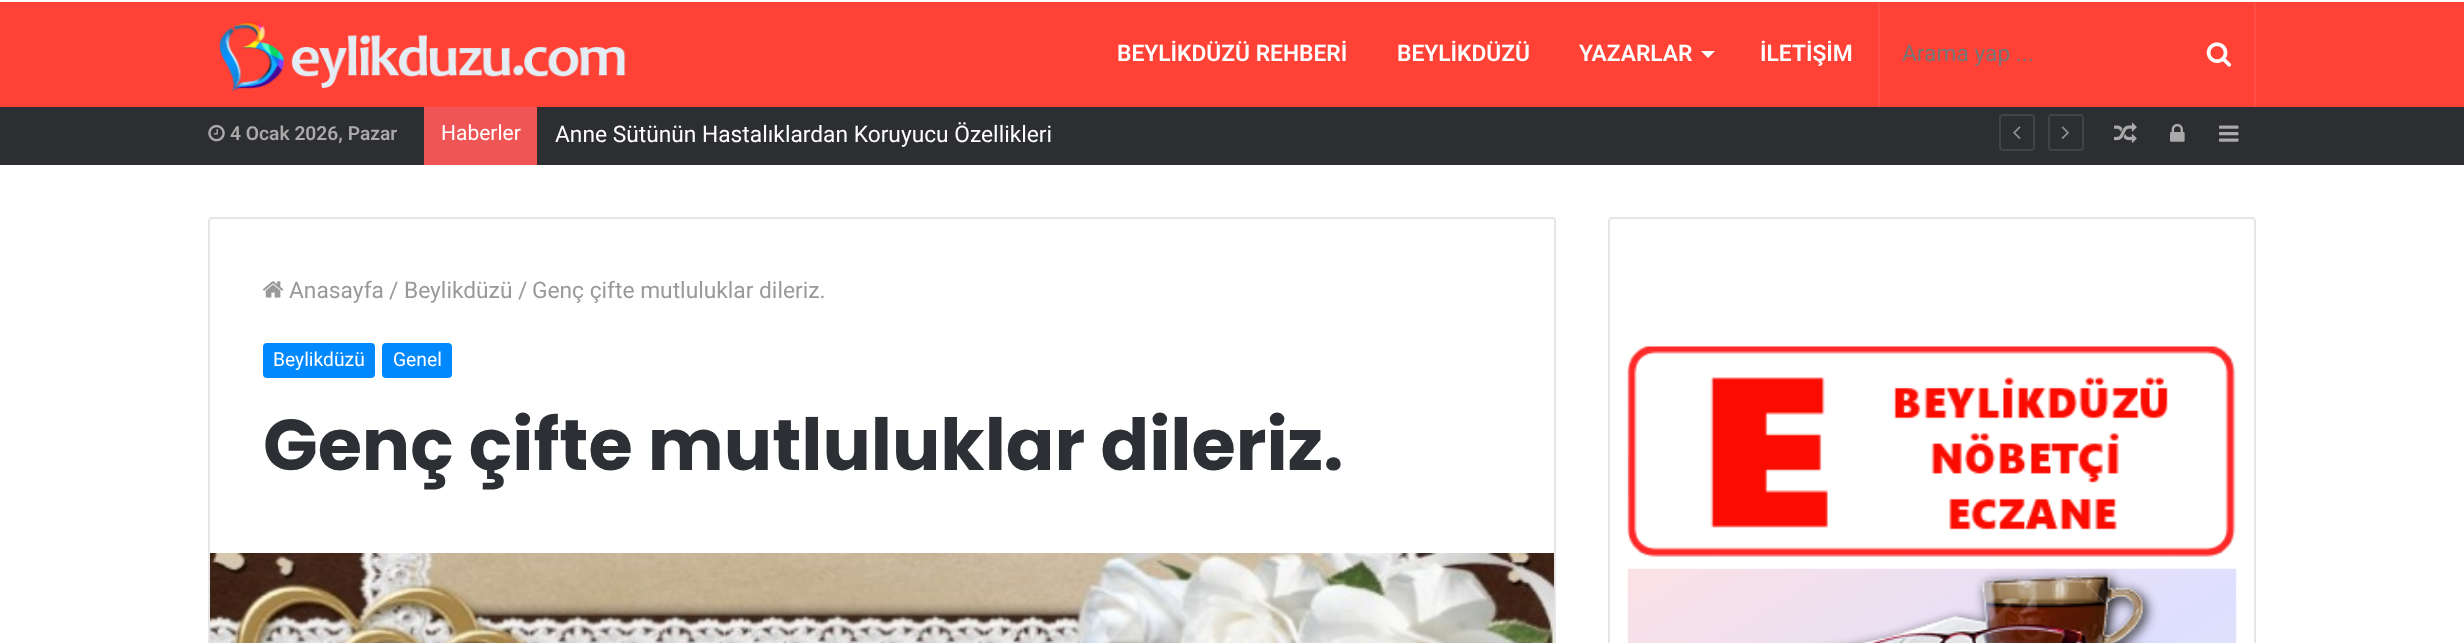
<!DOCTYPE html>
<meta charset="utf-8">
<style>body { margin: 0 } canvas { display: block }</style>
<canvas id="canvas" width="2464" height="643"></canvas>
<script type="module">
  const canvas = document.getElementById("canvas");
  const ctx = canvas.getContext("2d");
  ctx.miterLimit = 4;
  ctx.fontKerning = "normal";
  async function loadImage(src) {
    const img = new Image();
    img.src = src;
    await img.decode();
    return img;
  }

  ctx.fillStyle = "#ffffff";
  ctx.fillRect(0, 0, 2464, 643);
  ctx.fillStyle = "#ff4136";
  ctx.fillRect(0, 2, 2464, 105);
  ctx.drawImage(await loadImage("img1.png"), 219, 21, 407, 72);
  ctx.font = "600 22.75px Roboto";
  ctx.fillStyle = "#ffffff";
  ctx.fillText("BEYLİKDÜZÜ REHBERİ", 1117, 61);
  ctx.fillText("BEYLİKDÜZÜ", 1397, 61);
  ctx.fillText("YAZARLAR", 1579, 61);
  ctx.beginPath();
  ctx.moveTo(1701, 51);
  ctx.lineTo(1715, 51);
  ctx.lineTo(1708, 58);
  ctx.closePath();
  ctx.fill();
  ctx.fillText("İLETİŞİM", 1760, 61);
  ctx.fillStyle = "#ff4e44";
  ctx.fillRect(2254, 2, 2, 105);
  ctx.fillRect(1878, 2, 2, 105);
  ctx.font = "22.75px Roboto";
  ctx.fillStyle = "#757575";
  ctx.fillText("Arama yap ...", 1902, 61);
  ctx.drawImage(await loadImage("img2.png"), 2206, 42, 26, 25);
  ctx.fillStyle = "#2c2e32";
  ctx.fillRect(0, 107, 2464, 58);
  ctx.drawImage(await loadImage("img3.png"), 208, 124, 17, 18);
  ctx.font = "600 19.25px Roboto";
  ctx.fillStyle = "#aaaaaa";
  ctx.fillText("4 Ocak 2026, Pazar", 230, 140);
  ctx.fillStyle = "#f05555";
  ctx.fillRect(424, 107, 113, 58);
  ctx.font = "21px Roboto";
  ctx.fillStyle = "#ffffff";
  ctx.fillText("Haberler", 441, 140);
  ctx.font = "22.75px Roboto";
  ctx.fillText("Anne Sütünün Hastalıklardan Koruyucu Özellikleri", 555, 142);
  ctx.beginPath();
  ctx.roundRect(2000, 115, 34, 35, 3);
  ctx.strokeStyle = "#414347";
  ctx.lineWidth = 2;
  ctx.stroke();
  ctx.drawImage(await loadImage("img4.png"), 2013, 126, 8, 13);
  ctx.beginPath();
  ctx.roundRect(2049, 115, 34, 35, 3);
  ctx.stroke();
  ctx.drawImage(await loadImage("img5.png"), 2061, 126, 8, 13);
  ctx.drawImage(await loadImage("img6.png"), 2114, 122, 23, 21);
  ctx.drawImage(await loadImage("img7.png"), 2170, 123, 15, 19);
  ctx.drawImage(await loadImage("img8.png"), 2219, 125, 20, 17);
  ctx.beginPath();
  ctx.roundRect(209, 218, 1346, 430, 3);
  ctx.strokeStyle = "#e6e6e6";
  ctx.stroke();
  ctx.drawImage(await loadImage("img9.png"), 262, 281, 22, 17);
  ctx.fillStyle = "#999999";
  ctx.fillText("Anasayfa", 289, 298);
  ctx.fillText("/", 389, 298);
  ctx.fillText("Beylikdüzü", 404, 298);
  ctx.fillText("/", 518, 298);
  ctx.fillText("Genç çifte mutluluklar dileriz.", 532, 298);
  ctx.fillStyle = "#0088ff";
  ctx.beginPath();
  ctx.roundRect(263, 343, 112, 35, 4);
  ctx.fill();
  ctx.font = "19.25px Roboto";
  ctx.fillStyle = "#ffffff";
  ctx.fillText("Beylikdüzü", 273, 366);
  ctx.fillStyle = "#0088ff";
  ctx.beginPath();
  ctx.roundRect(382, 343, 70, 35, 4);
  ctx.fill();
  ctx.fillStyle = "#ffffff";
  ctx.fillText("Genel", 393, 366);
  ctx.font = "bold 71.75px Poppins";
  ctx.fillStyle = "#2c2f34";
  ctx.fillText("Genç çifte mutluluklar dileriz.", 263, 470);
  ctx.drawImage(await loadImage("img10.png"), 210, 553, 1344, 90);
  ctx.beginPath();
  ctx.roundRect(1609, 218, 646, 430, 3);
  ctx.stroke();
  ctx.drawImage(await loadImage("img11.png"), 1627, 346, 609, 211);
  ctx.drawImage(await loadImage("img12.png"), 1627, 568, 610, 75);
</script>
